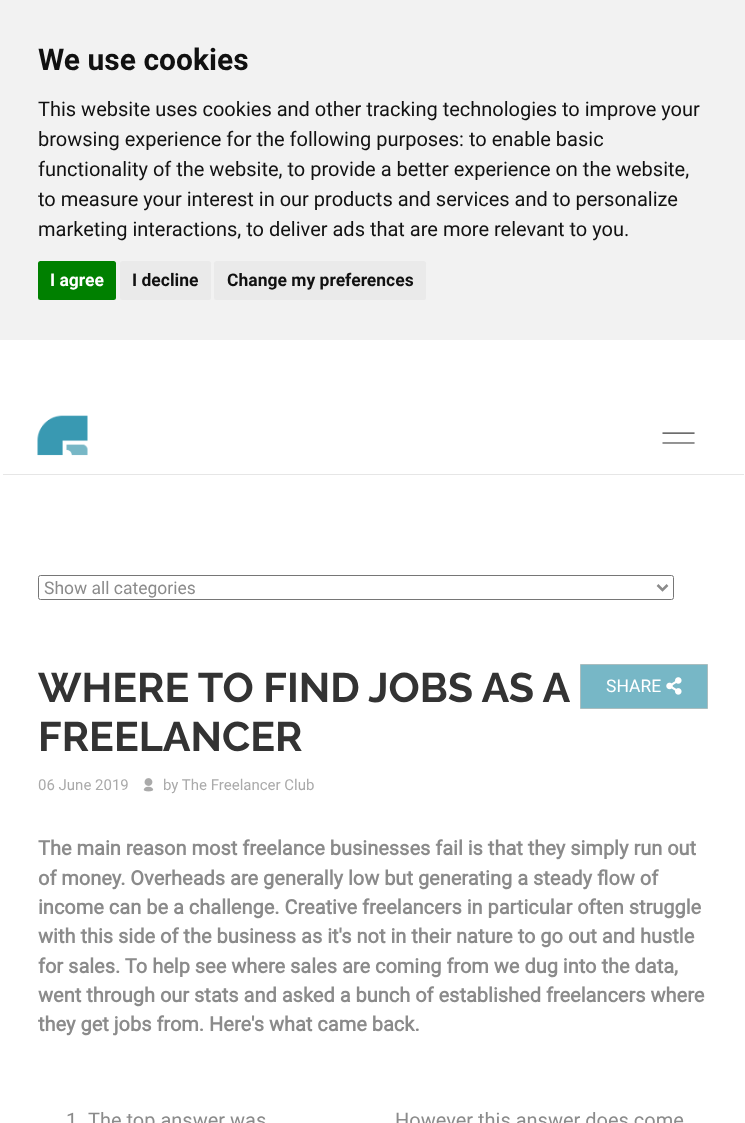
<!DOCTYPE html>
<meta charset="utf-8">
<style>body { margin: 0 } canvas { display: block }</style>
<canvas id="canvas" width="745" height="1123"></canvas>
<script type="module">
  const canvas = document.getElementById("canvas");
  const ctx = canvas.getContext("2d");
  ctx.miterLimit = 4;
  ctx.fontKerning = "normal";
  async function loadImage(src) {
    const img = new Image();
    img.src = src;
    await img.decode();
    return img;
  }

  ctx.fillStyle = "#ffffff";
  ctx.fillRect(0, 0, 745, 1123);
  ctx.fillStyle = "#f2f2f2";
  ctx.fillRect(0, 0, 745, 340);
  ctx.font = "bold 30px 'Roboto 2'";
  ctx.fillStyle = "#111111";
  ctx.fillText("We use cookies", 38, 70);
  ctx.font = "20px 'Roboto 2'";
  ctx.fillText("This website uses cookies and other tracking technologies to improve your", 38, 116);
  ctx.fillText("browsing experience for the following purposes: to enable basic", 38, 146);
  ctx.fillText("functionality of the website, to provide a better experience on the website,", 38, 176);
  ctx.fillText("to measure your interest in our products and services and to personalize", 38, 206);
  ctx.fillText("marketing interactions, to deliver ads that are more relevant to you.", 38, 236);
  ctx.fillStyle = "#008000";
  ctx.beginPath();
  ctx.roundRect(38, 261, 78, 39, 2.5);
  ctx.fill();
  ctx.font = "bold 17.5px 'Roboto 2'";
  ctx.fillStyle = "#ffffff";
  ctx.fillText("I agree", 50, 286);
  ctx.fillStyle = "#eaeaea";
  ctx.beginPath();
  ctx.roundRect(120, 261, 91, 39, 2.5);
  ctx.fill();
  ctx.fillStyle = "#111111";
  ctx.fillText("I decline", 132, 286);
  ctx.fillStyle = "#eaeaea";
  ctx.beginPath();
  ctx.roundRect(214, 261, 212, 39, 2.5);
  ctx.fill();
  ctx.fillStyle = "#111111";
  ctx.fillText("Change my preferences", 227, 286);
  ctx.fillStyle = "#e6e6e6";
  ctx.fillRect(3, 474, 741, 1);
  ctx.drawImage(await loadImage("img1.png"), 37, 415, 51, 41);
  ctx.drawImage(await loadImage("img2.png"), 662, 432, 33, 12);
  ctx.beginPath();
  ctx.roundRect(38.5, 575.5, 635, 24, 2);
  ctx.strokeStyle = "#767676";
  ctx.stroke();
  ctx.beginPath();
  ctx.moveTo(657.5, 585);
  ctx.lineTo(662.5, 590);
  ctx.lineTo(667.5, 585);
  ctx.strokeStyle = "#8b8b8b";
  ctx.lineWidth = 2.5;
  ctx.stroke();
  ctx.font = "17.5px Roboto";
  ctx.fillStyle = "#8b8b8b";
  ctx.fillText("Show all categories", 44, 594);
  ctx.wordSpacing = "-0.25px";
  ctx.font = "bold 41.25px Raleway";
  ctx.fillStyle = "#333333";
  ctx.fillText("WHERE TO FIND JOBS AS A", 38, 702);
  ctx.wordSpacing = "0px";
  ctx.fillText("FREELANCER", 38, 751);
  ctx.fillStyle = "#77b7c6";
  ctx.beginPath();
  ctx.rect(580.5, 664.5, 127, 44);
  ctx.fill();
  ctx.strokeStyle = "#aabdbf";
  ctx.lineWidth = 1;
  ctx.stroke();
  ctx.font = "17.5px Roboto";
  ctx.fillStyle = "#ffffff";
  ctx.fillText("SHARE", 606, 692);
  ctx.drawImage(await loadImage("img3.png"), 666, 677, 16, 18);
  ctx.font = "15px Roboto";
  ctx.fillStyle = "#aaaaaa";
  ctx.fillText("06 June 2019", 38, 790);
  ctx.drawImage(await loadImage("img4.png"), 143, 778, 11, 14);
  ctx.fillText("by The Freelancer Club", 163, 790);
  ctx.font = "bold 20px Roboto";
  ctx.fillStyle = "#8b8b8b";
  ctx.fillText("The main reason most freelance businesses fail is that they simply run out", 38, 855);
  ctx.fillText("of money. Overheads are generally low but generating a steady flow of", 38, 885);
  ctx.fillText("income can be a challenge. Creative freelancers in particular often struggle", 38, 914);
  ctx.fillText("with this side of the business as it's not in their nature to go out and hustle", 38, 943);
  ctx.fillText("for sales. To help see where sales are coming from we dug into the data,", 38, 973);
  ctx.fillText("went through our stats and asked a bunch of established freelancers where", 38, 1002);
  ctx.fillText("they get jobs from. Here's what came back.", 38, 1031);
  ctx.font = "20px Roboto";
  ctx.fillText("1", 66, 1127);
  ctx.fillText("The top answer was", 88, 1127);
  ctx.fillText("However this answer does come", 395, 1127);
</script>
